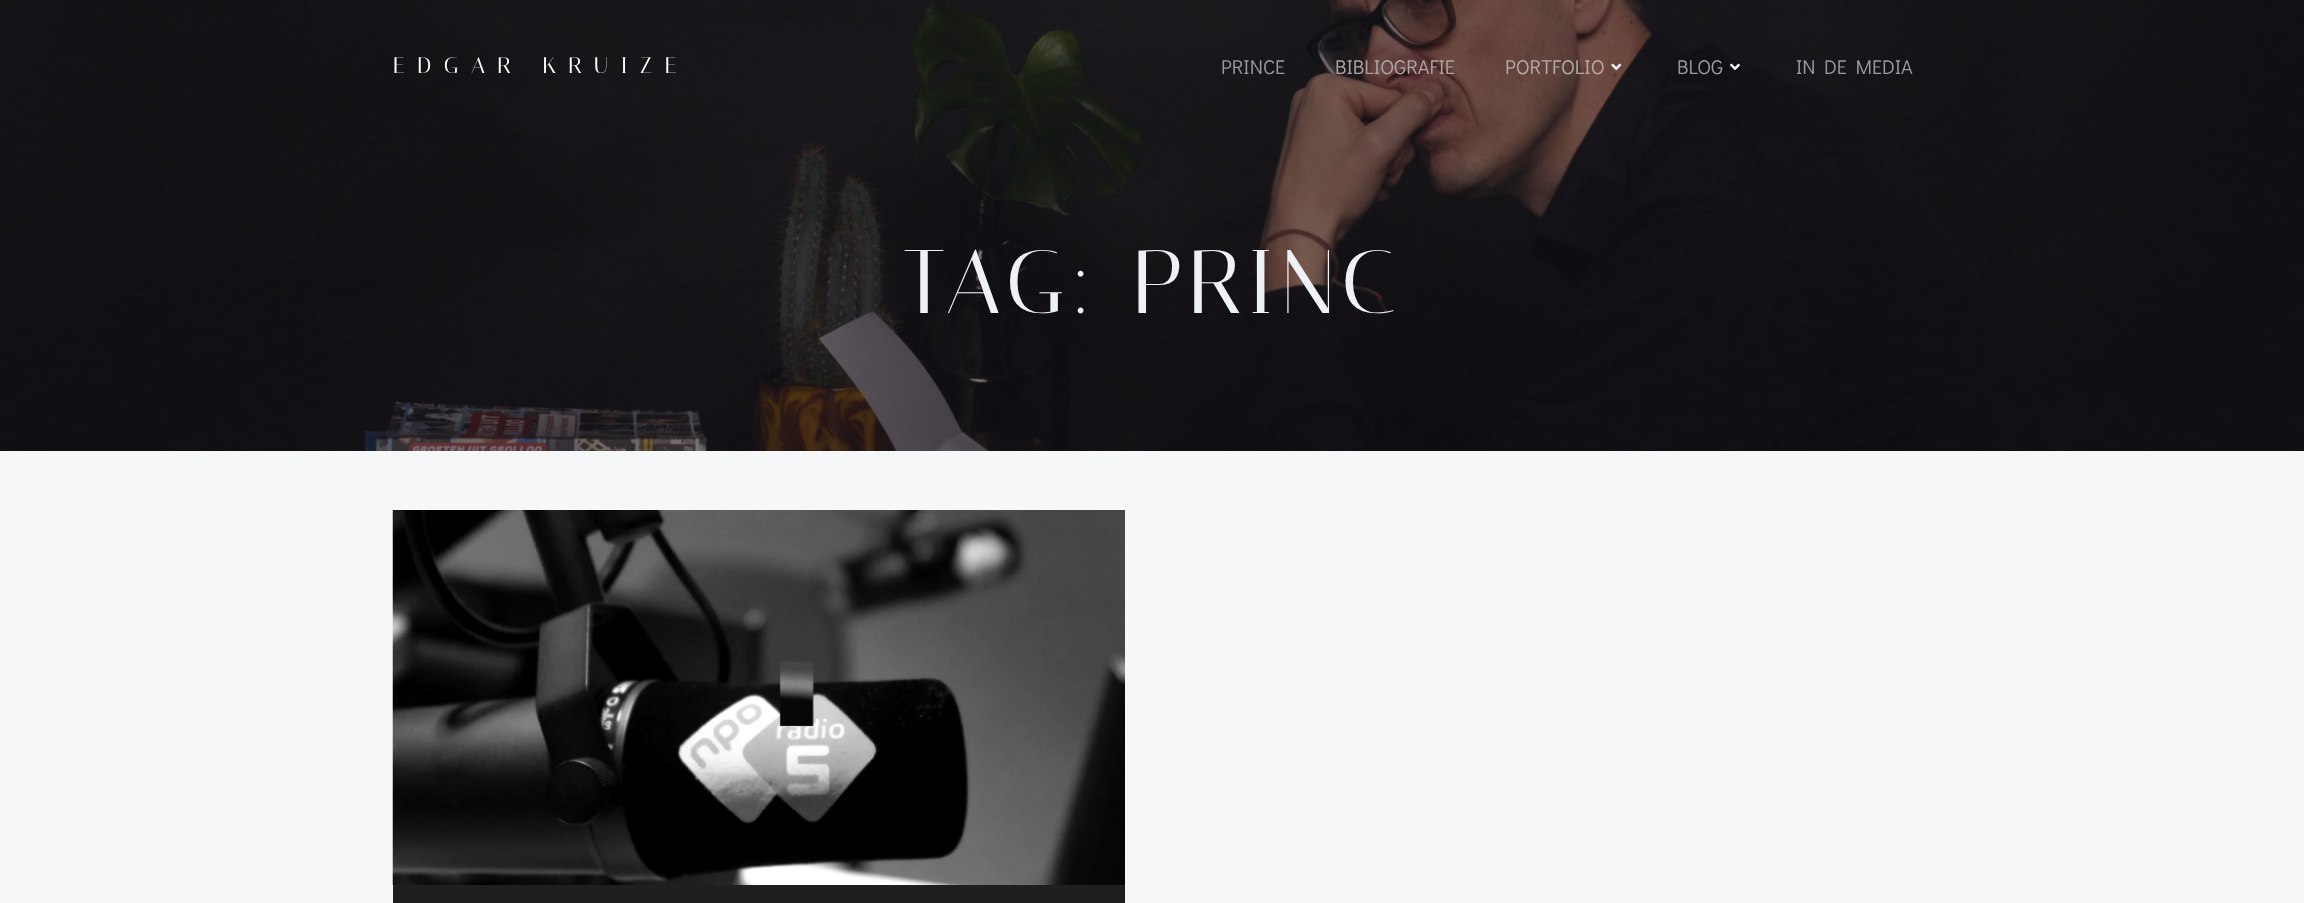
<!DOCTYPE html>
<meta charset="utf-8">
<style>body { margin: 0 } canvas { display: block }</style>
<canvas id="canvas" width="2304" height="903"></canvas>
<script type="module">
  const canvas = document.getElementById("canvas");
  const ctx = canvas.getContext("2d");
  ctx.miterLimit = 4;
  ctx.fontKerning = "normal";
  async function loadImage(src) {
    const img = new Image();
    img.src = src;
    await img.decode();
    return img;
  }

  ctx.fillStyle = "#ffffff";
  ctx.fillRect(0, 0, 2304, 903);
  ctx.drawImage(await loadImage("img3.png"), 0, 0, 2304, 451);
  ctx.letterSpacing = "12.5px";
  ctx.font = "22.5px Italiana";
  ctx.fillText("EDGAR KRUIZE", 393, 73);
  ctx.letterSpacing = "0px";
  ctx.font = "20px Didact Gothic";
  ctx.fillStyle = "#989a9e";
  ctx.fillText("PRINCE", 1221, 74);
  ctx.fillStyle = "#ada4a6";
  ctx.fillText("BIBLIOGRAFIE", 1335, 74);
  ctx.fillStyle = "#b6acab";
  ctx.fillText("PORTFOLIO", 1505, 74);
  ctx.drawImage(await loadImage("img1.png"), 1611, 63, 11, 8);
  ctx.fillStyle = "#989a9e";
  ctx.fillText("BLOG", 1677, 74);
  ctx.drawImage(await loadImage("img2.png"), 1730, 63, 10, 7);
  ctx.fillText("IN DE MEDIA", 1796, 74);
  ctx.letterSpacing = "6.25px";
  ctx.font = "90px Italiana";
  ctx.fillStyle = "#eef1f5";
  ctx.fillText("TAG: PRINC", 902, 313);
  ctx.fillStyle = "#f5f7f8";
  ctx.fillRect(0, 451, 2304, 452);
  ctx.drawImage(await loadImage("img4.png"), 392, 510, 733, 375);
  ctx.fillStyle = "#1f1f20";
  ctx.fillRect(393, 885, 732, 18);
</script>
